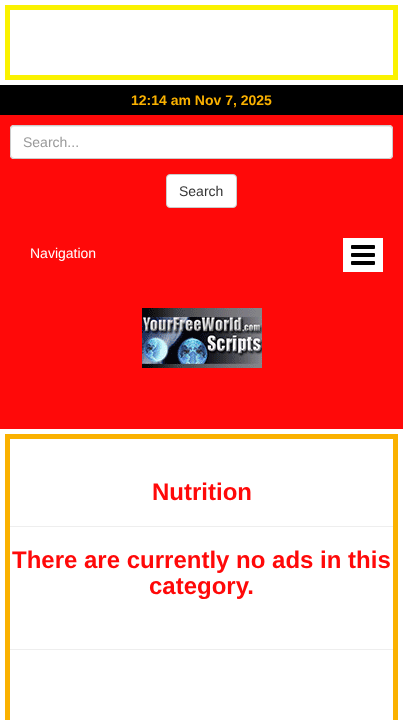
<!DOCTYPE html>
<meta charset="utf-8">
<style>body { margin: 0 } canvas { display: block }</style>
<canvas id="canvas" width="403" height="720"></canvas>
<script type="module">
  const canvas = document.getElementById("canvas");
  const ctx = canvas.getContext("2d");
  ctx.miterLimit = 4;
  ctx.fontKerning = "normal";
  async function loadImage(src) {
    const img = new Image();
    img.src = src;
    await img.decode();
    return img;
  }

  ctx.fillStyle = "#ffffff";
  ctx.fillRect(0, 0, 403, 720);
  ctx.fillStyle = "#faf200";
  ctx.fillRect(5, 5, 393, 5);
  ctx.fillRect(393, 5, 5, 75);
  ctx.fillRect(5, 75, 393, 5);
  ctx.fillRect(5, 5, 5, 75);
  ctx.fillStyle = "#000000";
  ctx.fillRect(0, 85, 403, 30);
  ctx.font = "bold 14px Liberation Sans";
  ctx.fillStyle = "#fab100";
  ctx.fillText("12:14 am Nov 7, 2025", 131, 105);
  ctx.fillStyle = "#ff0909";
  ctx.fillRect(0, 115, 403, 314);
  ctx.fillStyle = "#ffffff";
  ctx.beginPath();
  ctx.roundRect(10, 125, 383, 34, 4);
  ctx.fill();
  ctx.fillStyle = "#ececec";
  ctx.beginPath();
  ctx.moveTo(14, 127);
  ctx.lineTo(389, 127);
  ctx.bezierCurveTo(391, 127, 392, 128, 392, 130);
  ctx.bezierCurveTo(392, 128, 391, 126, 389, 126);
  ctx.lineTo(14, 126);
  ctx.lineTo(12, 127);
  ctx.lineTo(11, 130);
  ctx.bezierCurveTo(11, 128, 12, 127, 14, 127);
  ctx.closePath();
  ctx.fill();
  ctx.beginPath();
  ctx.roundRect(10.5, 125.5, 382, 33, 3.5);
  ctx.strokeStyle = "#cccccc";
  ctx.stroke();
  ctx.font = "14px Liberation Sans";
  ctx.fillStyle = "#999999";
  ctx.fillText("Search...", 23, 147);
  ctx.fillStyle = "#ffffff";
  ctx.beginPath();
  ctx.roundRect(166.5, 174.5, 70, 33, 3.5);
  ctx.fill();
  ctx.stroke();
  ctx.fillStyle = "#333333";
  ctx.fillText("Search", 179, 196);
  ctx.fillStyle = "#ffffff";
  ctx.fillText("Navigation", 30, 258);
  ctx.fillRect(343, 238, 40, 34);
  ctx.drawImage(await loadImage("img1.png"), 351, 245, 24, 20);
  ctx.drawImage(await loadImage("img2.png"), 142, 308, 120, 60);
  ctx.fillStyle = "#fab100";
  ctx.fillRect(5, 434, 393, 5);
  ctx.fillRect(393, 434, 5, 286);
  ctx.fillRect(5, 434, 5, 286);
  ctx.font = "bold 24px Liberation Sans";
  ctx.fillStyle = "#ff0909";
  ctx.fillText("Nutrition", 152, 500);
  ctx.fillStyle = "#eeeeee";
  ctx.fillRect(10, 526, 383, 1);
  ctx.fillStyle = "#ff0909";
  ctx.fillText("There are currently no ads in this", 12, 568);
  ctx.fillText("category.", 149, 594);
  ctx.fillStyle = "#eeeeee";
  ctx.fillRect(10, 649, 383, 1);
</script>
